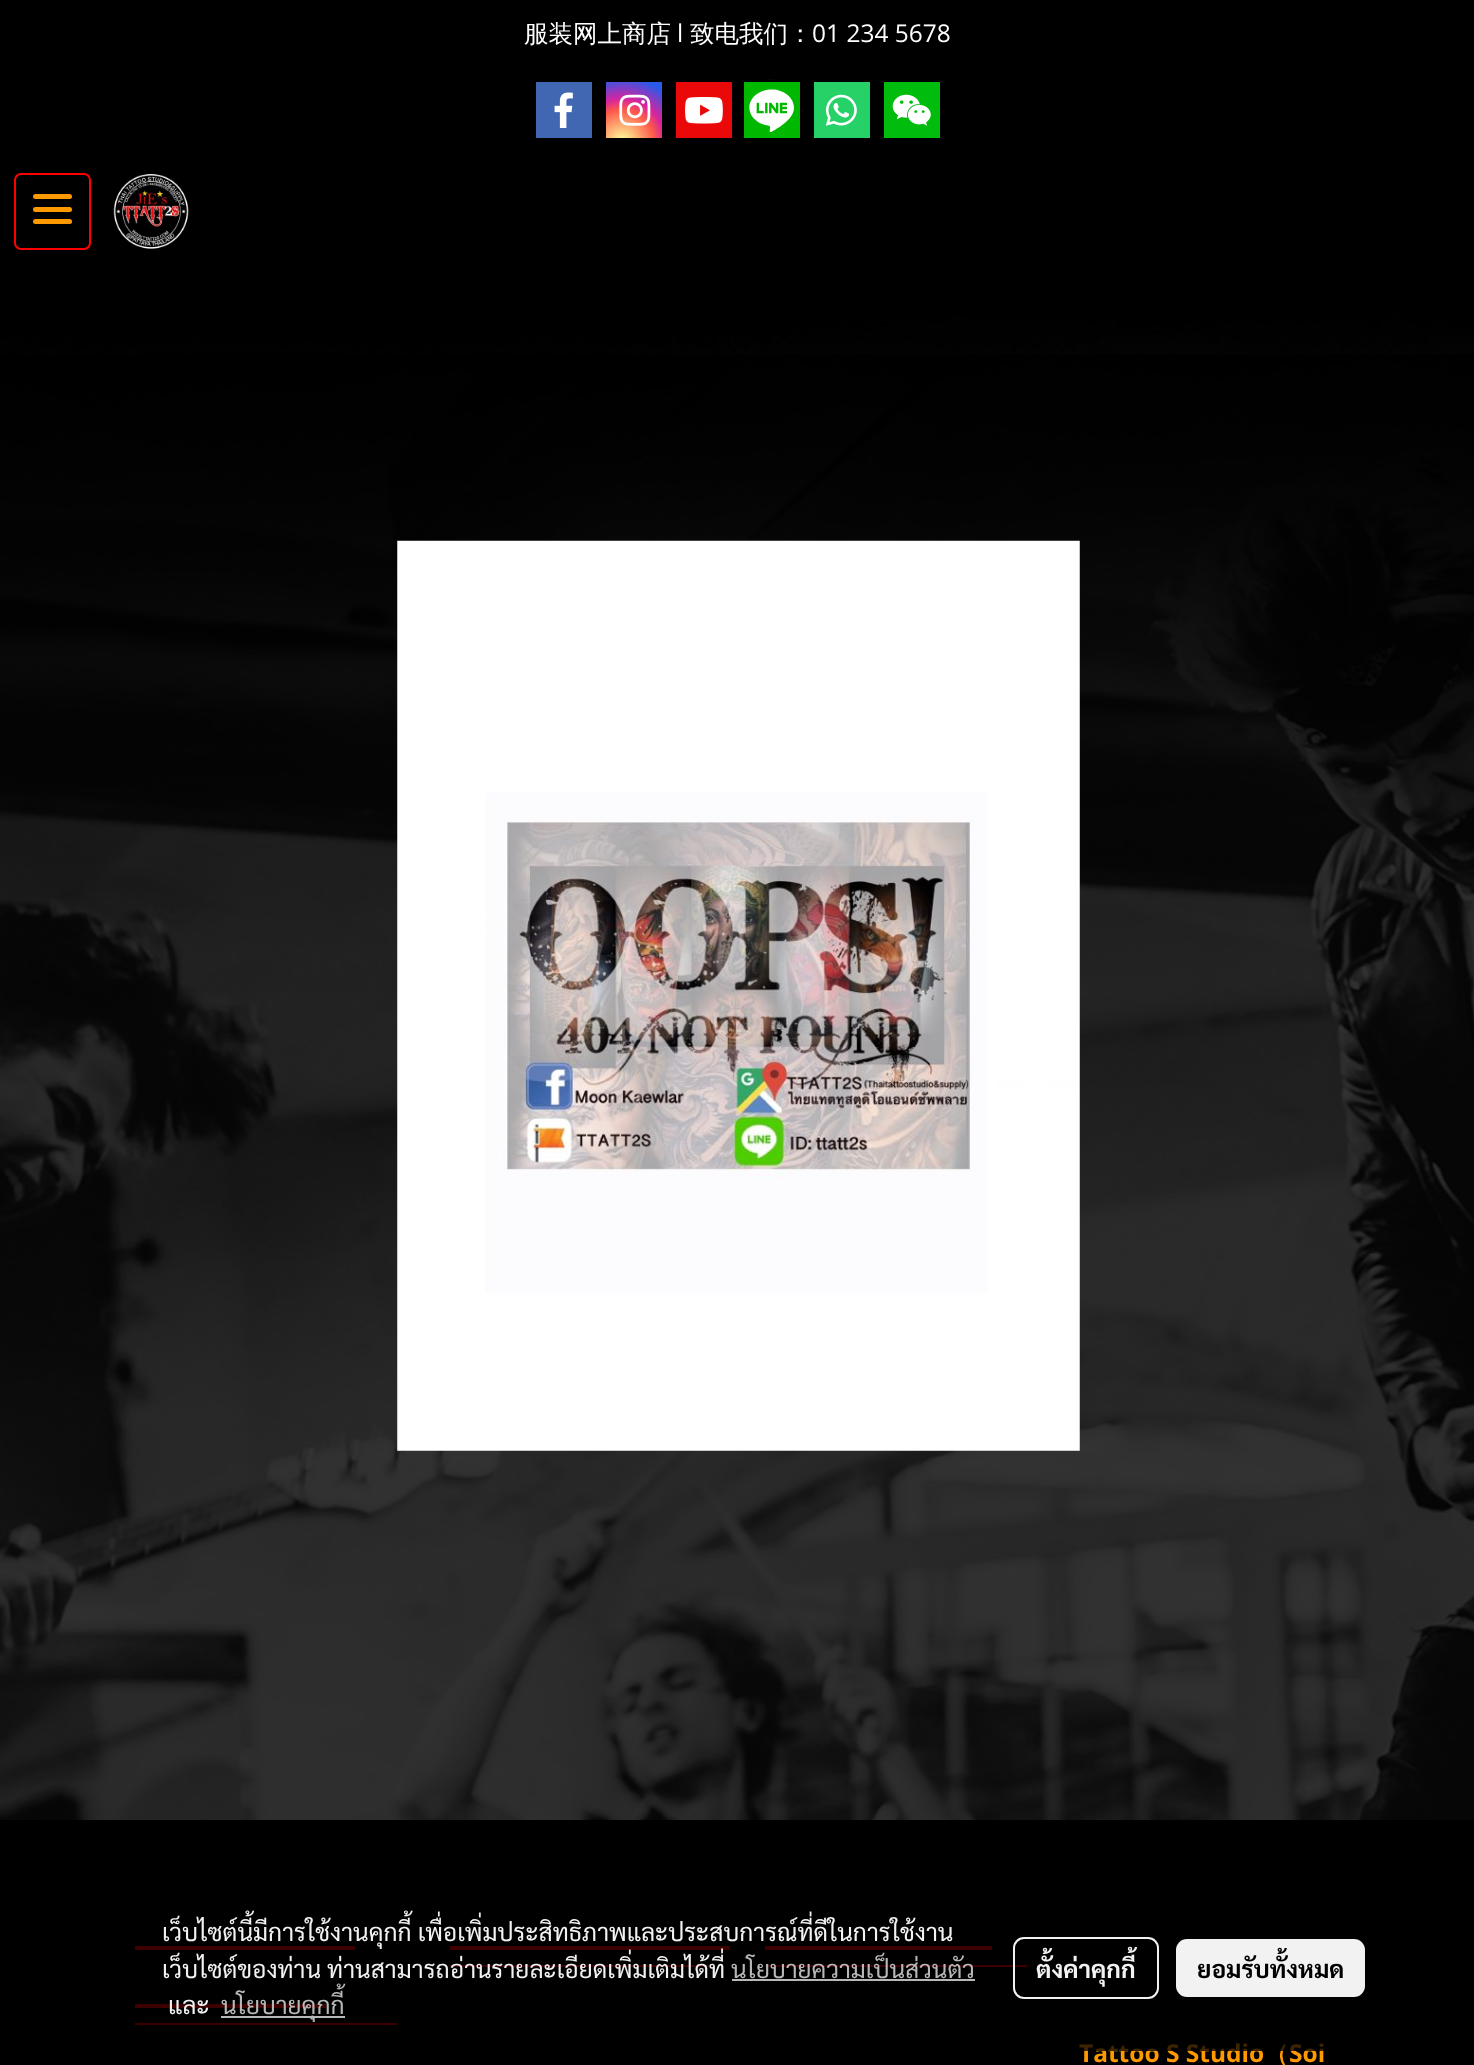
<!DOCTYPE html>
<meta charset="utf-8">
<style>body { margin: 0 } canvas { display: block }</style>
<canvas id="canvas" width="1474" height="2065"></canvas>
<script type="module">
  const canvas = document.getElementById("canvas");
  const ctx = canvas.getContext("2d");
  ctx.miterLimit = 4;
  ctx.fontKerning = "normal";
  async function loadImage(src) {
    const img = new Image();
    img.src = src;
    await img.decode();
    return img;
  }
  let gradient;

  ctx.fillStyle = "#ffffff";
  ctx.fillRect(0, 0, 1474, 2065);
  ctx.drawImage(await loadImage("img1.png"), 0, 0, 1474, 1820);
  ctx.font = "500 24.5px WenQuanYi Zen Hei";
  ctx.fillText("服装网上商店", 524, 42);
  ctx.font = "24.5px Open Sans";
  ctx.fillText("l", 677, 42);
  ctx.font = "500 24.5px WenQuanYi Zen Hei";
  ctx.fillText("致电我们：", 690, 42);
  ctx.font = "24.5px Open Sans";
  ctx.fillText("01 234 5678", 812, 42);
  ctx.fillStyle = "#4267b2";
  ctx.fillRect(536, 82, 56, 56);
  ctx.drawImage(await loadImage("img2.png"), 554, 92, 19, 36);
  gradient = ctx.createRadialGradient(622, 142, 0, 622, 142, 72);
  gradient.addColorStop(0, "#fdf497");
  gradient.addColorStop(0.05, "#fdf497");
  gradient.addColorStop(0.45, "#fd5949");
  gradient.addColorStop(0.6, "#d6249f");
  gradient.addColorStop(0.9, "#285aeb");
  ctx.fillStyle = gradient;
  ctx.fillRect(606, 82, 56, 56);
  ctx.drawImage(await loadImage("img3.png"), 619, 94, 32, 32);
  ctx.fillStyle = "#eb0808";
  ctx.fillRect(676, 82, 56, 56);
  ctx.drawImage(await loadImage("img4.png"), 685, 96, 38, 28);
  ctx.fillStyle = "#00b800";
  ctx.fillRect(744, 82, 56, 56);
  ctx.drawImage(await loadImage("img5.png"), 741, 79, 62, 53);
  ctx.fillStyle = "#26d267";
  ctx.fillRect(814, 82, 56, 56);
  ctx.drawImage(await loadImage("img6.png"), 825, 94, 32, 32);
  ctx.fillStyle = "#00bc0c";
  ctx.fillRect(884, 82, 56, 56);
  ctx.drawImage(await loadImage("img7.png"), 892, 94, 39, 32);
  ctx.beginPath();
  ctx.roundRect(15, 174, 75, 75, 6);
  ctx.strokeStyle = "#ff0000";
  ctx.lineWidth = 2;
  ctx.stroke();
  ctx.fillStyle = "#ff9900";
  ctx.beginPath();
  ctx.roundRect(33, 207, 39, 5, 2.5);
  ctx.fill();
  ctx.beginPath();
  ctx.roundRect(33, 194, 39, 5, 2.5);
  ctx.fill();
  ctx.beginPath();
  ctx.roundRect(33, 219, 39, 5, 2.5);
  ctx.fill();
  ctx.drawImage(await loadImage("img8.png"), 113, 174, 76, 75);
  ctx.drawImage(await loadImage("img9.png"), 397, 540, 683, 911);
  ctx.fillStyle = "#000000";
  ctx.fillRect(0, 1820, 1474, 245);
  ctx.fillStyle = "#ff0000";
  ctx.fillRect(135, 2023, 262, 2);
  ctx.fillRect(135, 1946, 220, 4);
  ctx.fillRect(135, 2004, 191, 4);
  ctx.fillRect(450, 1965, 262, 2);
  ctx.fillRect(450, 1946, 280, 4);
  ctx.fillRect(765, 1965, 262, 2);
  ctx.fillRect(765, 1946, 227, 4);
  ctx.font = "bold 24.5px Open Sans";
  ctx.fillStyle = "#ff9900";
  ctx.fillText("Tattoo S Studio", 1079, 2062);
  ctx.font = "bold 24.5px WenQuanYi Zen Hei";
  ctx.fillText("（", 1264, 2062);
  ctx.font = "bold 24.5px Open Sans";
  ctx.fillText("Soi", 1289, 2062);
  ctx.fillStyle = "rgba(0, 0, 0, 0.76)";
  ctx.beginPath();
  ctx.roundRect(109, 1885, 1260, 166, 14);
  ctx.fill();
  ctx.font = "24.5px Sarabun";
  ctx.fillStyle = "#f3f2f2";
  ctx.fillText("เว็บไซต์นี้มีการใช้งานคุกกี้ เพื่อเพิ่มประสิทธิภาพและประสบการณ์ที่ดีในการใช้งาน", 162, 1941);
  ctx.fillText("เว็บไซต์ของท่าน ท่านสามารถอ่านรายละเอียดเพิ่มเติมได้ที่", 162, 1978);
  ctx.fillStyle = "#b9b8b8";
  ctx.fillText("นโยบายความเป็นส่วนตัว", 731, 1978);
  ctx.fillStyle = "#b8b8b8";
  ctx.fillRect(732, 1979, 243, 2);
  ctx.fillStyle = "#f3f2f2";
  ctx.fillText("และ", 168, 2014);
  ctx.fillStyle = "#b8b8b8";
  ctx.fillRect(221, 2016, 124, 2);
  ctx.fillStyle = "#b9b8b8";
  ctx.fillText("นโยบายคุกกี้", 221, 2014);
  ctx.beginPath();
  ctx.roundRect(1014, 1938, 144, 60, 10);
  ctx.strokeStyle = "rgba(255, 255, 255, 0.95)";
  ctx.stroke();
  ctx.font = "bold 24.5px Sarabun";
  ctx.fillStyle = "#f3f2f2";
  ctx.fillText("ตั้งค่าคุกกี้", 1036, 1978);
  ctx.fillStyle = "rgba(255, 255, 255, 0.95)";
  ctx.beginPath();
  ctx.roundRect(1176, 1939, 189, 58, 11);
  ctx.fill();
  ctx.fillStyle = "#000000";
  ctx.fillText("ยอมรับทั้งหมด", 1197, 1978);
</script>
